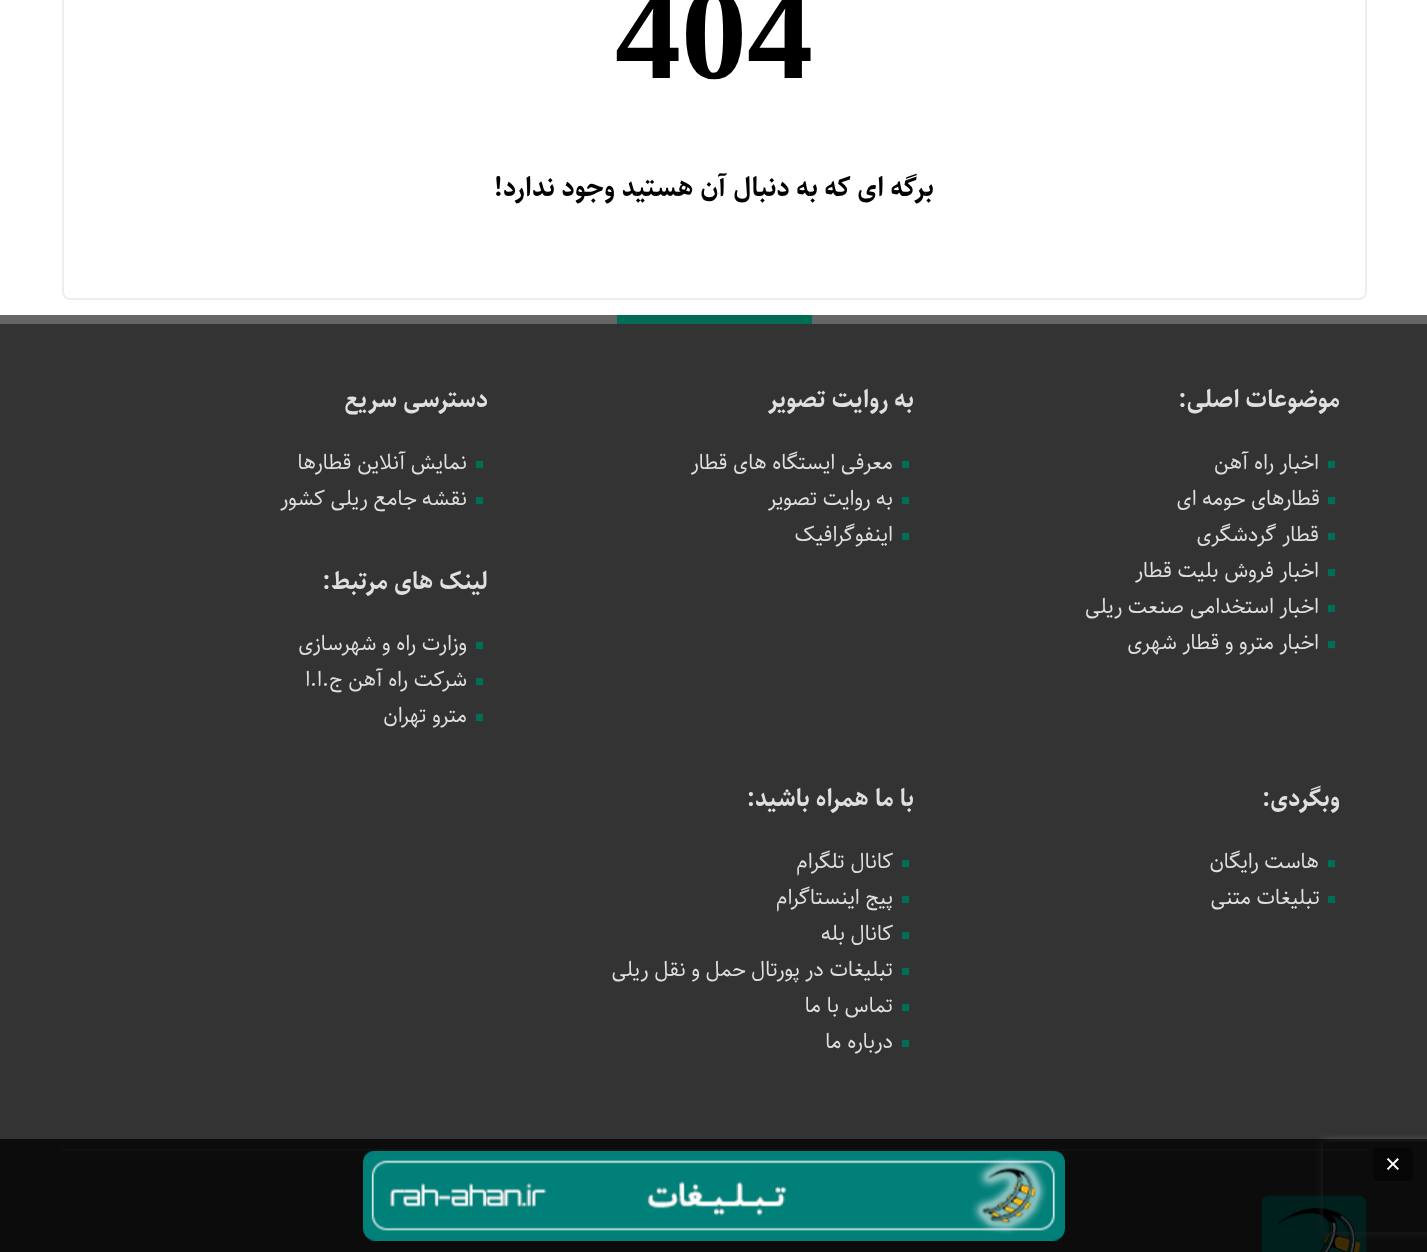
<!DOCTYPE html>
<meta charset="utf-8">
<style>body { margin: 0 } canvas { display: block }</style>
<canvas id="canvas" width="1427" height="1252"></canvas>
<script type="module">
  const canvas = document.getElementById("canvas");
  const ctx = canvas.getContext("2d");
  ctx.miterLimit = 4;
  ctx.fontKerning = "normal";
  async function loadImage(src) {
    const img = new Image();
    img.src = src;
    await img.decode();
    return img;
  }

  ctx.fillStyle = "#ffffff";
  ctx.fillRect(0, 0, 1427, 1252);
  ctx.beginPath();
  ctx.roundRect(63, -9, 1303, 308, 7);
  ctx.strokeStyle = "#eeeeee";
  ctx.lineWidth = 2;
  ctx.stroke();
  ctx.font = "bold 132px Liberation Serif";
  ctx.fillStyle = "#000000";
  ctx.fillText("404", 615, 78);
  ctx.direction = "rtl";
  ctx.font = "bold 26.4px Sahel";
  ctx.fillText("برگه ای که به دنبال آن هستید وجود ندارد!", 934, 196);
  ctx.fillStyle = "#333333";
  ctx.fillRect(0, 324, 1427, 928);
  ctx.fillStyle = "#666666";
  ctx.fillRect(0, 315, 1427, 9);
  ctx.fillStyle = "#006d54";
  ctx.fillRect(617, 315, 195, 9);
  ctx.fillStyle = "#444444";
  ctx.fillRect(62, 1149, 1305, 2);
  ctx.font = "bold 24px Sahel";
  ctx.fillStyle = "#e0e0e0";
  ctx.fillText("موضوعات اصلی:", 1340, 407);
  ctx.direction = "ltr";
  ctx.font = "15px Liberation Serif";
  ctx.fillStyle = "#006d54";
  ctx.fillText("■", 1327, 469);
  ctx.direction = "rtl";
  ctx.font = "21px Sahel";
  ctx.fillStyle = "#e0e0e0";
  ctx.fillText("اخبار راه آهن", 1319, 469);
  ctx.direction = "ltr";
  ctx.font = "15px Liberation Serif";
  ctx.fillStyle = "#006d54";
  ctx.fillText("■", 1327, 505);
  ctx.direction = "rtl";
  ctx.font = "21px Sahel";
  ctx.fillStyle = "#e0e0e0";
  ctx.fillText("قطارهای حومه ای", 1320, 505);
  ctx.direction = "ltr";
  ctx.font = "15px Liberation Serif";
  ctx.fillStyle = "#006d54";
  ctx.fillText("■", 1327, 541);
  ctx.direction = "rtl";
  ctx.font = "21px Sahel";
  ctx.fillStyle = "#e0e0e0";
  ctx.fillText("قطار گردشگری", 1319, 541);
  ctx.direction = "ltr";
  ctx.font = "15px Liberation Serif";
  ctx.fillStyle = "#006d54";
  ctx.fillText("■", 1327, 577);
  ctx.direction = "rtl";
  ctx.font = "21px Sahel";
  ctx.fillStyle = "#e0e0e0";
  ctx.fillText("اخبار فروش بلیت قطار", 1319, 577);
  ctx.direction = "ltr";
  ctx.font = "15px Liberation Serif";
  ctx.fillStyle = "#006d54";
  ctx.fillText("■", 1327, 613);
  ctx.direction = "rtl";
  ctx.font = "21px Sahel";
  ctx.fillStyle = "#e0e0e0";
  ctx.fillText("اخبار استخدامی صنعت ریلی", 1319, 613);
  ctx.direction = "ltr";
  ctx.font = "15px Liberation Serif";
  ctx.fillStyle = "#006d54";
  ctx.fillText("■", 1327, 649);
  ctx.direction = "rtl";
  ctx.font = "21px Sahel";
  ctx.fillStyle = "#e0e0e0";
  ctx.fillText("اخبار مترو و قطار شهری", 1319, 649);
  ctx.font = "bold 24px Sahel";
  ctx.fillText("به روایت تصویر", 914, 407);
  ctx.direction = "ltr";
  ctx.font = "15px Liberation Serif";
  ctx.fillStyle = "#006d54";
  ctx.fillText("■", 901, 469);
  ctx.direction = "rtl";
  ctx.font = "21px Sahel";
  ctx.fillStyle = "#e0e0e0";
  ctx.fillText("معرفی ایستگاه های قطار", 893, 469);
  ctx.direction = "ltr";
  ctx.font = "15px Liberation Serif";
  ctx.fillStyle = "#006d54";
  ctx.fillText("■", 901, 505);
  ctx.direction = "rtl";
  ctx.font = "21px Sahel";
  ctx.fillStyle = "#e0e0e0";
  ctx.fillText("به روایت تصویر", 893, 505);
  ctx.direction = "ltr";
  ctx.font = "15px Liberation Serif";
  ctx.fillStyle = "#006d54";
  ctx.fillText("■", 901, 541);
  ctx.direction = "rtl";
  ctx.font = "21px Sahel";
  ctx.fillStyle = "#e0e0e0";
  ctx.fillText("اینفوگرافیک", 893, 541);
  ctx.font = "bold 24px Sahel";
  ctx.fillText("دسترسی سریع", 488, 407);
  ctx.direction = "ltr";
  ctx.font = "15px Liberation Serif";
  ctx.fillStyle = "#006d54";
  ctx.fillText("■", 475, 469);
  ctx.direction = "rtl";
  ctx.font = "21px Sahel";
  ctx.fillStyle = "#e0e0e0";
  ctx.fillText("نمایش آنلاین قطارها", 467, 469);
  ctx.direction = "ltr";
  ctx.font = "15px Liberation Serif";
  ctx.fillStyle = "#006d54";
  ctx.fillText("■", 475, 505);
  ctx.direction = "rtl";
  ctx.font = "21px Sahel";
  ctx.fillStyle = "#e0e0e0";
  ctx.fillText("نقشه جامع ریلی کشور", 467, 505);
  ctx.font = "bold 24px Sahel";
  ctx.fillText("لینک های مرتبط:", 488, 589);
  ctx.direction = "ltr";
  ctx.font = "15px Liberation Serif";
  ctx.fillStyle = "#006d54";
  ctx.fillText("■", 475, 650);
  ctx.direction = "rtl";
  ctx.font = "21px Sahel";
  ctx.fillStyle = "#e0e0e0";
  ctx.fillText("وزارت راه و شهرسازی", 467, 650);
  ctx.direction = "ltr";
  ctx.font = "15px Liberation Serif";
  ctx.fillStyle = "#006d54";
  ctx.fillText("■", 475, 686);
  ctx.direction = "rtl";
  ctx.font = "21px Sahel";
  ctx.fillStyle = "#e0e0e0";
  ctx.fillText("شرکت راه آهن ج.ا.ا", 467, 686);
  ctx.direction = "ltr";
  ctx.font = "15px Liberation Serif";
  ctx.fillStyle = "#006d54";
  ctx.fillText("■", 475, 722);
  ctx.direction = "rtl";
  ctx.font = "21px Sahel";
  ctx.fillStyle = "#e0e0e0";
  ctx.fillText("مترو تهران", 467, 722);
  ctx.font = "bold 24px Sahel";
  ctx.fillText("وبگردی:", 1340, 806);
  ctx.direction = "ltr";
  ctx.font = "15px Liberation Serif";
  ctx.fillStyle = "#006d54";
  ctx.fillText("■", 1327, 868);
  ctx.direction = "rtl";
  ctx.font = "21px Sahel";
  ctx.fillStyle = "#e0e0e0";
  ctx.fillText("هاست رایگان", 1319, 868);
  ctx.direction = "ltr";
  ctx.font = "15px Liberation Serif";
  ctx.fillStyle = "#006d54";
  ctx.fillText("■", 1327, 904);
  ctx.direction = "rtl";
  ctx.font = "21px Sahel";
  ctx.fillStyle = "#e0e0e0";
  ctx.fillText("تبلیغات متنی", 1320, 904);
  ctx.font = "bold 24px Sahel";
  ctx.fillText("با ما همراه باشید:", 914, 806);
  ctx.direction = "ltr";
  ctx.font = "15px Liberation Serif";
  ctx.fillStyle = "#006d54";
  ctx.fillText("■", 901, 868);
  ctx.direction = "rtl";
  ctx.font = "21px Sahel";
  ctx.fillStyle = "#e0e0e0";
  ctx.fillText("کانال تلگرام", 893, 868);
  ctx.direction = "ltr";
  ctx.font = "15px Liberation Serif";
  ctx.fillStyle = "#006d54";
  ctx.fillText("■", 901, 904);
  ctx.direction = "rtl";
  ctx.font = "21px Sahel";
  ctx.fillStyle = "#e0e0e0";
  ctx.fillText("پیج اینستاگرام", 893, 904);
  ctx.direction = "ltr";
  ctx.font = "15px Liberation Serif";
  ctx.fillStyle = "#006d54";
  ctx.fillText("■", 901, 940);
  ctx.direction = "rtl";
  ctx.font = "21px Sahel";
  ctx.fillStyle = "#e0e0e0";
  ctx.fillText("کانال بله", 893, 940);
  ctx.direction = "ltr";
  ctx.font = "15px Liberation Serif";
  ctx.fillStyle = "#006d54";
  ctx.fillText("■", 901, 976);
  ctx.direction = "rtl";
  ctx.font = "21px Sahel";
  ctx.fillStyle = "#e0e0e0";
  ctx.fillText("تبلیغات در پورتال حمل و نقل ریلی", 893, 976);
  ctx.direction = "ltr";
  ctx.font = "15px Liberation Serif";
  ctx.fillStyle = "#006d54";
  ctx.fillText("■", 901, 1012);
  ctx.direction = "rtl";
  ctx.font = "21px Sahel";
  ctx.fillStyle = "#e0e0e0";
  ctx.fillText("تماس با ما", 893, 1012);
  ctx.direction = "ltr";
  ctx.font = "15px Liberation Serif";
  ctx.fillStyle = "#006d54";
  ctx.fillText("■", 901, 1048);
  ctx.direction = "rtl";
  ctx.font = "21px Sahel";
  ctx.fillStyle = "#e0e0e0";
  ctx.fillText("درباره ما", 893, 1048);
  ctx.drawImage(await loadImage("img1.png"), 1261, 1195, 106, 57);
  ctx.save();
  ctx.beginPath();
  ctx.moveTo(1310, 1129);
  ctx.lineTo(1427, 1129);
  ctx.lineTo(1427, 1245);
  ctx.lineTo(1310, 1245);
  ctx.closePath();
  ctx.moveTo(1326, 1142);
  ctx.lineTo(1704, 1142);
  ctx.bezierCurveTo(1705.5, 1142, 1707, 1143.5, 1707, 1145);
  ctx.lineTo(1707, 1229);
  ctx.bezierCurveTo(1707, 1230.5, 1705.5, 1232, 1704, 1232);
  ctx.lineTo(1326, 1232);
  ctx.bezierCurveTo(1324.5, 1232, 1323, 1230.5, 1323, 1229);
  ctx.lineTo(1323, 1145);
  ctx.bezierCurveTo(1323, 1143.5, 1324.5, 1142, 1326, 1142);
  ctx.closePath();
  ctx.clip("evenodd");
  ctx.fillStyle = "#808080";
  ctx.filter = "blur(4px)";
  ctx.beginPath();
  ctx.roundRect(1323, 1142, 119, 90, 3);
  ctx.fill();
  ctx.filter = "none";
  ctx.restore();
  ctx.fillStyle = "rgba(0, 0, 0, 0.75)";
  ctx.fillRect(0, 1139, 1427, 113);
  ctx.fillStyle = "#060606";
  ctx.beginPath();
  ctx.roundRect(1373, 1148, 40, 33, 6);
  ctx.fill();
  ctx.direction = "ltr";
  ctx.font = "27px Liberation Sans";
  ctx.fillStyle = "#ffffff";
  ctx.fillText("×", 1385, 1173);
  ctx.drawImage(await loadImage("img2.png"), 363, 1151, 702, 90);
</script>
